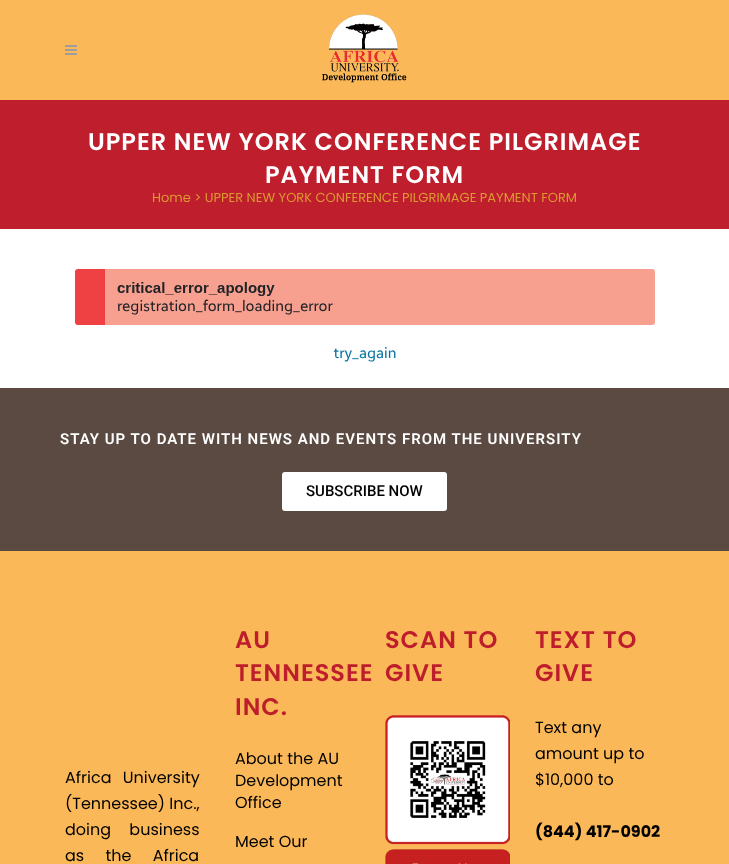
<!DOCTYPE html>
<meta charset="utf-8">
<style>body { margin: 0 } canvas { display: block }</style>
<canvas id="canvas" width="729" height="864"></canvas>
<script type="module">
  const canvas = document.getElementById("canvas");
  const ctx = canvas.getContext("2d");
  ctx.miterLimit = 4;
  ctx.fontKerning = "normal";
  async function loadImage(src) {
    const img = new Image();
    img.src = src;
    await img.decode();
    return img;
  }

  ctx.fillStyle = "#ffffff";
  ctx.fillRect(0, 0, 729, 864);
  ctx.fillStyle = "#fbb858";
  ctx.fillRect(0, 0, 729, 100);
  ctx.drawImage(await loadImage("img1.png"), 65, 45, 12, 10);
  ctx.drawImage(await loadImage("img2.png"), 322, 14, 85, 69);
  ctx.fillStyle = "#bf1e2d";
  ctx.fillRect(0, 100, 729, 129);
  ctx.letterSpacing = "1px";
  ctx.font = "600 24px Poppins";
  ctx.fillStyle = "#ffffff";
  ctx.fillText("UPPER NEW YORK CONFERENCE PILGRIMAGE", 88, 150);
  ctx.fillText("PAYMENT FORM", 265, 183);
  ctx.letterSpacing = "0px";
  ctx.font = "13px Poppins";
  ctx.fillStyle = "#dd9933";
  ctx.fillText("Home > UPPER NEW YORK CONFERENCE PILGRIMAGE PAYMENT FORM", 152, 202);
  ctx.drawImage(await loadImage("img3.png"), 75, 269, 580, 93);
  ctx.fillStyle = "#5b4a42";
  ctx.fillRect(0, 388, 729, 163);
  ctx.letterSpacing = "1px";
  ctx.font = "600 15px Roboto";
  ctx.fillStyle = "#ffffff";
  ctx.fillText("STAY UP TO DATE WITH NEWS AND EVENTS FROM THE UNIVERSITY", 60, 444);
  ctx.beginPath();
  ctx.roundRect(282, 472, 165, 39, 3);
  ctx.fill();
  ctx.letterSpacing = "0px";
  ctx.font = "500 15px Roboto";
  ctx.fillStyle = "#000000";
  ctx.fillText("SUBSCRIBE NOW", 306, 496);
  ctx.fillStyle = "#fbb858";
  ctx.fillRect(0, 551, 729, 313);
  ctx.wordSpacing = "7px";
  ctx.font = "16px Poppins";
  ctx.fillStyle = "#000000";
  ctx.fillText("Africa University", 65, 783);
  ctx.wordSpacing = "0px";
  ctx.fillText("(Tennessee) Inc.,", 65, 809);
  ctx.wordSpacing = "14px";
  ctx.fillText("doing business", 65, 835);
  ctx.wordSpacing = "17px";
  ctx.fillText("as the Africa", 65, 861);
  ctx.letterSpacing = "1px";
  ctx.wordSpacing = "0px";
  ctx.font = "600 24px Poppins";
  ctx.fillStyle = "#be1e2c";
  ctx.fillText("AU", 235, 648);
  ctx.fillText("TENNESSEE", 235, 681);
  ctx.fillText("INC.", 235, 715);
  ctx.letterSpacing = "0px";
  ctx.font = "16px Poppins";
  ctx.fillStyle = "#000000";
  ctx.fillText("About the AU", 235, 764);
  ctx.fillText("Development", 235, 786);
  ctx.fillText("Office", 235, 808);
  ctx.fillText("Meet Our", 235, 847);
  ctx.letterSpacing = "1px";
  ctx.font = "600 24px Poppins";
  ctx.fillStyle = "#be1e2c";
  ctx.fillText("SCAN TO", 385, 648);
  ctx.fillText("GIVE", 385, 681);
  ctx.drawImage(await loadImage("img4.png"), 385, 715, 125, 149);
  ctx.fillText("TEXT TO", 535, 648);
  ctx.fillText("GIVE", 535, 681);
  ctx.letterSpacing = "0px";
  ctx.font = "16px Poppins";
  ctx.fillStyle = "#000000";
  ctx.fillText("Text any", 535, 733);
  ctx.fillText("amount up to", 535, 759);
  ctx.fillText("$10,000 to", 535, 785);
  ctx.font = "bold 16px Poppins";
  ctx.fillText("(844) 417-0902", 535, 837);
</script>
